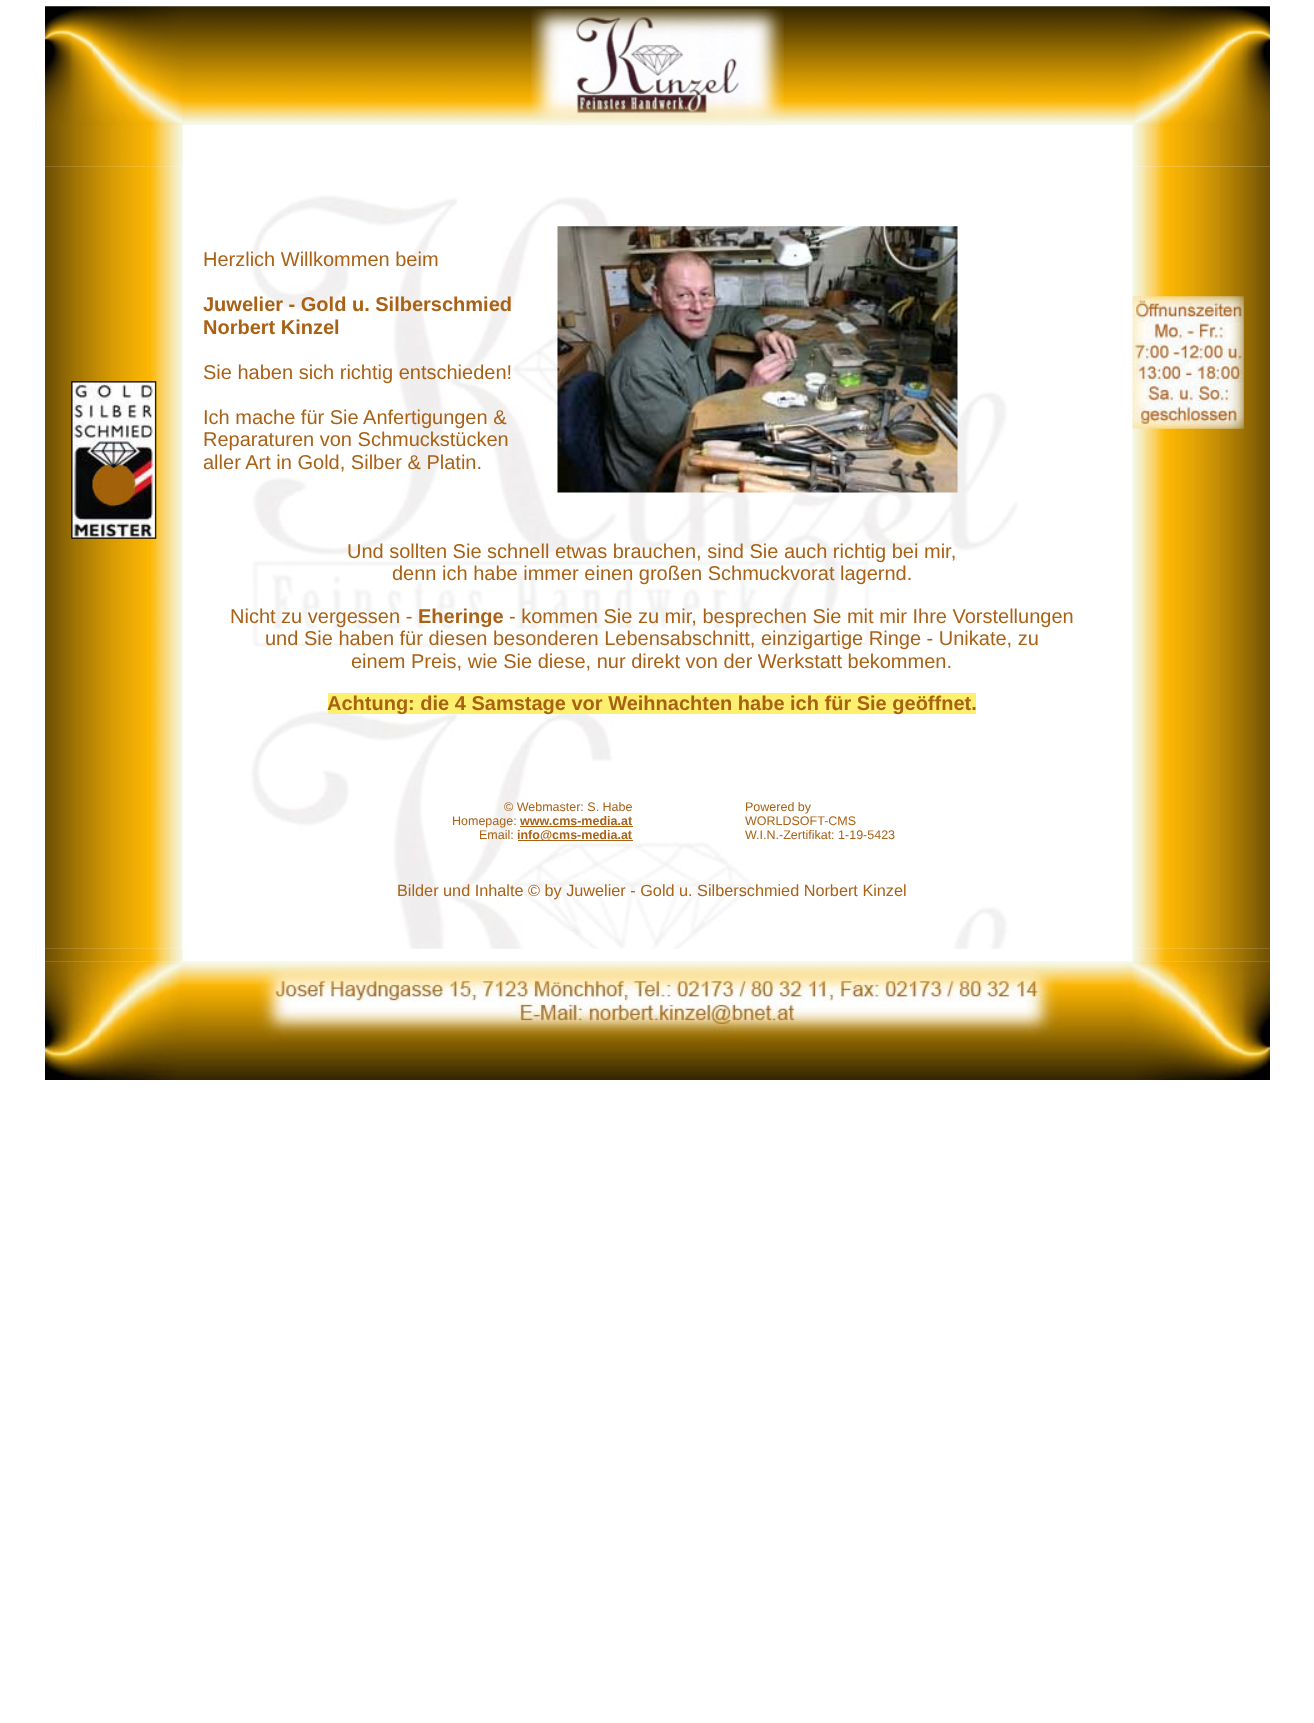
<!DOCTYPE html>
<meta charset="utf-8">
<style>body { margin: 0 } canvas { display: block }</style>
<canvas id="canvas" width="1314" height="1723"></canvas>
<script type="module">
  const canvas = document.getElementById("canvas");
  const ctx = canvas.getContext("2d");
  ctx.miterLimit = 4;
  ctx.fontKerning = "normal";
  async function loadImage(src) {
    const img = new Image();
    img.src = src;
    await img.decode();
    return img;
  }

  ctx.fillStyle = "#ffffff";
  ctx.fillRect(0, 0, 1314, 1723);
  ctx.drawImage(await loadImage("img1.png"), 45, 6, 1225, 119);
  ctx.drawImage(await loadImage("img2.png"), 45, 125, 138, 42);
  ctx.drawImage(await loadImage("img3.png"), 45, 125, 138, 42);
  ctx.drawImage(await loadImage("img4.png"), 1132, 125, 138, 42);
  ctx.fillStyle = "#f7f9ed";
  ctx.fillRect(1132, 130, 1, 31);
  ctx.drawImage(await loadImage("img5.png"), 45, 166, 138, 783);
  ctx.drawImage(await loadImage("img6.png"), 71, 381, 86, 158);
  ctx.drawImage(await loadImage("img7.png"), 182, 166, 836, 783);
  ctx.font = "20px Liberation Sans";
  ctx.fillStyle = "#a96115";
  ctx.fillText("Herzlich Willkommen beim", 203, 266);
  ctx.font = "bold 20px Liberation Sans";
  ctx.fillText("Juwelier - Gold u. Silberschmied", 203, 311);
  ctx.fillText("Norbert Kinzel", 203, 334);
  ctx.font = "20px Liberation Sans";
  ctx.fillText("Sie haben sich richtig entschieden!", 203, 379);
  ctx.fillText("Ich mache für Sie Anfertigungen &", 203, 424);
  ctx.fillText("Reparaturen von Schmuckstücken", 203, 446);
  ctx.fillText("aller Art in Gold, Silber & Platin.", 203, 469);
  ctx.drawImage(await loadImage("img8.png"), 557, 226, 401, 267);
  ctx.fillText("Und sollten Sie schnell etwas brauchen, sind Sie auch richtig bei mir,", 347, 558);
  ctx.fillText("denn ich habe immer einen großen Schmuckvorat lagernd.", 392, 580);
  ctx.fillText("Nicht zu vergessen -", 230, 623);
  ctx.font = "bold 20px Liberation Sans";
  ctx.fillText("Eheringe", 418, 623);
  ctx.font = "20px Liberation Sans";
  ctx.fillText("- kommen Sie zu mir, besprechen Sie mit mir Ihre Vorstellungen", 509, 623);
  ctx.fillText("und Sie haben für diesen besonderen Lebensabschnitt, einzigartige Ringe - Unikate, zu", 265, 645);
  ctx.fillText("einem Preis, wie Sie diese, nur direkt von der Werkstatt bekommen.", 351, 668);
  ctx.fillStyle = "#fcf06e";
  ctx.fillRect(328, 693, 648, 21);
  ctx.font = "bold 20px Liberation Sans";
  ctx.fillStyle = "#a96115";
  ctx.fillText("Achtung: die 4 Samstage vor Weihnachten habe ich für Sie geöffnet.", 327, 710);
  ctx.font = "12.5px Liberation Sans";
  ctx.fillText("© Webmaster: S. Habe", 504, 811);
  ctx.fillText("Homepage:", 452, 825);
  ctx.font = "bold 12.5px Liberation Sans";
  ctx.fillText("www.cms-media.at", 520, 825);
  ctx.fillRect(520, 826, 113, 1);
  ctx.font = "12.5px Liberation Sans";
  ctx.fillText("Email:", 479, 839);
  ctx.fillRect(518, 840, 115, 1);
  ctx.font = "bold 12.5px Liberation Sans";
  ctx.fillText("info@cms-media.at", 517, 839);
  ctx.font = "12.5px Liberation Sans";
  ctx.fillText("Powered by", 745, 811);
  ctx.fillText("WORLDSOFT-CMS", 745, 825);
  ctx.fillText("W.I.N.-Zertifikat: 1-19-5423", 745, 839);
  ctx.font = "16.25px Liberation Sans";
  ctx.fillText("Bilder und Inhalte © by Juwelier - Gold u. Silberschmied Norbert Kinzel", 397, 896);
  ctx.drawImage(await loadImage("img13.png"), 1132, 948, 138, 14);
  ctx.drawImage(await loadImage("img14.png"), 1132, 948, 138, 14);
  ctx.drawImage(await loadImage("img9.png"), 1132, 166, 138, 783);
  ctx.drawImage(await loadImage("img10.png"), 1132, 296, 112, 133);
  ctx.drawImage(await loadImage("img11.png"), 45, 948, 138, 14);
  ctx.drawImage(await loadImage("img12.png"), 45, 948, 138, 14);
  ctx.drawImage(await loadImage("img15.png"), 45, 961, 1225, 119);
</script>
